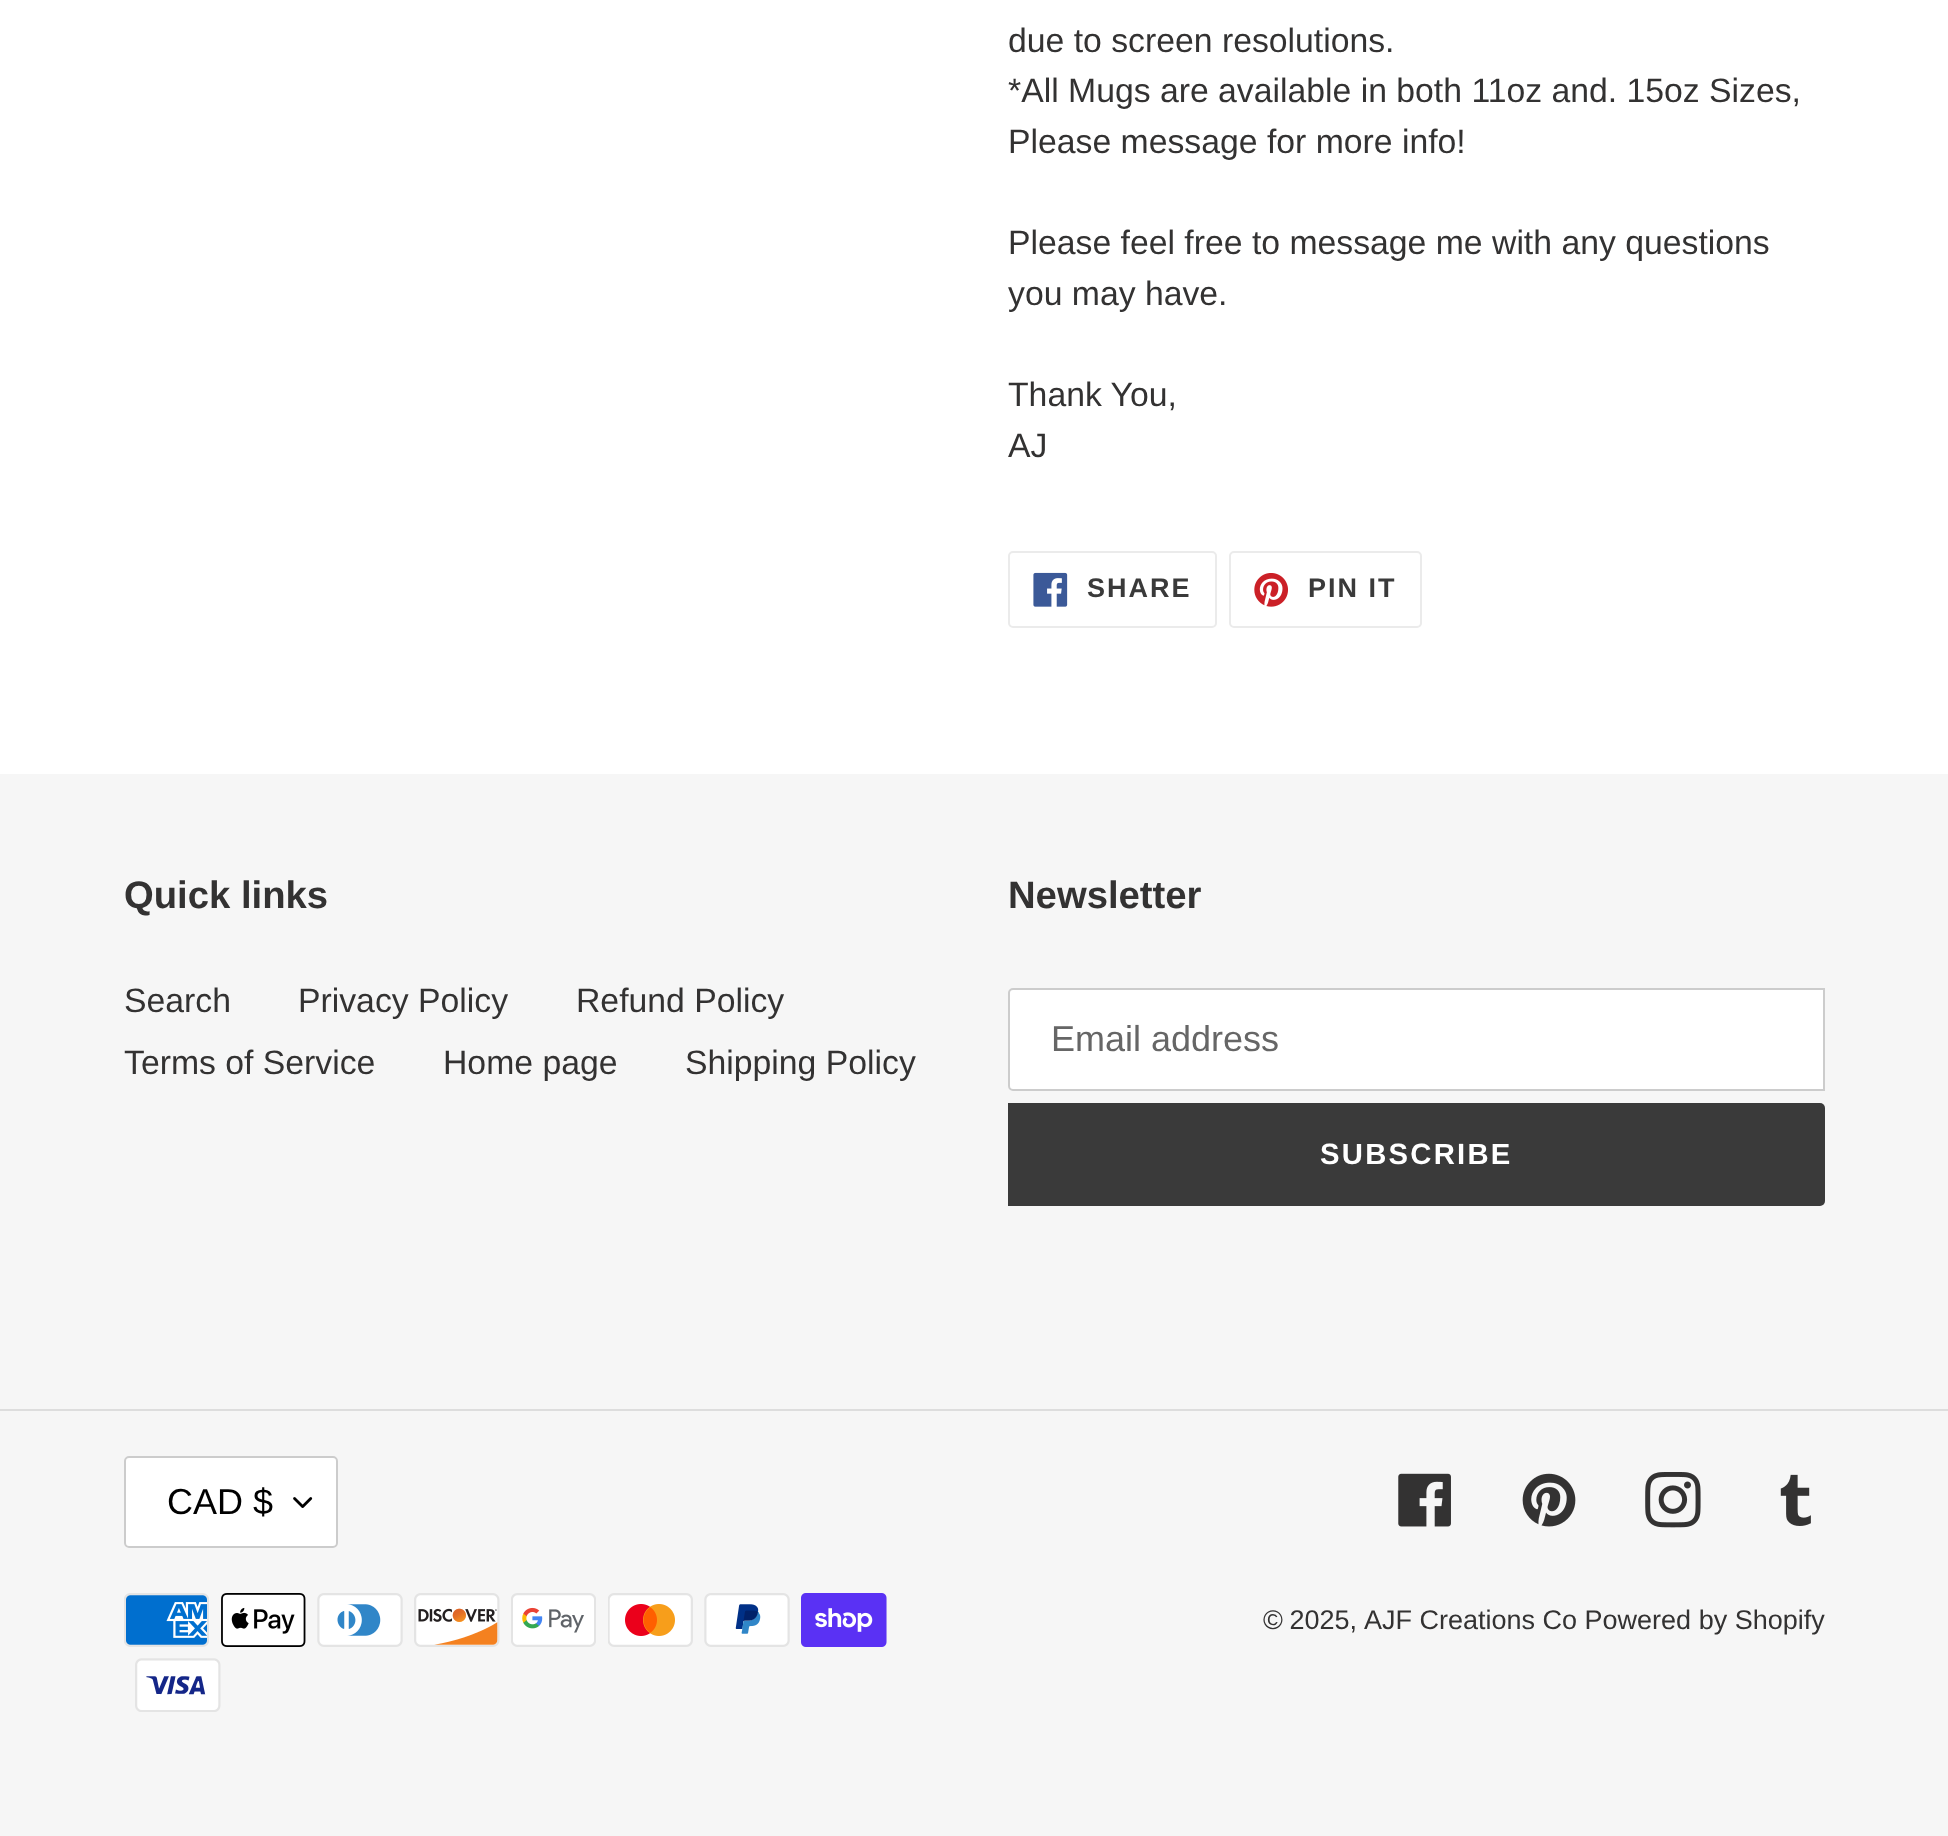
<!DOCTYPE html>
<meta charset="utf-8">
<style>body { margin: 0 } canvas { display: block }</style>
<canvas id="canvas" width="1948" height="1836"></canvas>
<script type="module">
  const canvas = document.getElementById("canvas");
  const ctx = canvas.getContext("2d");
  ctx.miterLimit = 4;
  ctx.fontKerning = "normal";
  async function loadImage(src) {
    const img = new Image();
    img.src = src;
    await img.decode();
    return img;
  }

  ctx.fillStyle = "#ffffff";
  ctx.fillRect(0, 0, 1948, 1836);
  ctx.font = "33.75px Liberation Sans";
  ctx.fillStyle = "#333232";
  ctx.fillText("due to screen resolutions.", 1008, 52);
  ctx.fillText("*All Mugs are available in both 11oz and. 15oz Sizes,", 1008, 102);
  ctx.fillText("Please message for more info!", 1008, 153);
  ctx.fillText("Please feel free to message me with any questions", 1008, 254);
  ctx.fillText("you may have.", 1008, 305);
  ctx.fillText("Thank You,", 1008, 406);
  ctx.fillText("AJ", 1008, 457);
  ctx.beginPath();
  ctx.roundRect(1009, 552, 207, 75, 4);
  ctx.strokeStyle = "#ebebeb";
  ctx.lineWidth = 2;
  ctx.stroke();
  ctx.drawImage(await loadImage("img1.png"), 1033, 572, 35, 35);
  ctx.letterSpacing = "2px";
  ctx.font = "bold 27px Liberation Sans";
  ctx.fillStyle = "#3a3a3a";
  ctx.fillText("SHARE", 1087, 597);
  ctx.beginPath();
  ctx.roundRect(1230, 552, 191, 75, 4);
  ctx.stroke();
  ctx.drawImage(await loadImage("img2.png"), 1254, 573, 34, 34);
  ctx.fillText("PIN IT", 1308, 597);
  ctx.fillStyle = "#f6f6f6";
  ctx.fillRect(0, 774, 1948, 1062);
  ctx.letterSpacing = "0px";
  ctx.font = "bold 38.25px Liberation Sans";
  ctx.fillStyle = "#333232";
  ctx.fillText("Quick links", 124, 908);
  ctx.font = "33.75px Liberation Sans";
  ctx.fillText("Search", 124, 1012);
  ctx.fillText("Privacy Policy", 298, 1012);
  ctx.fillText("Refund Policy", 576, 1012);
  ctx.fillText("Terms of Service", 124, 1074);
  ctx.fillText("Home page", 443, 1074);
  ctx.fillText("Shipping Policy", 685, 1074);
  ctx.font = "bold 38.25px Liberation Sans";
  ctx.fillText("Newsletter", 1008, 908);
  ctx.fillStyle = "#ffffff";
  ctx.beginPath();
  ctx.roundRect(1009, 989, 815, 101, [4, 0, 0, 4]);
  ctx.fill();
  ctx.strokeStyle = "#cccccc";
  ctx.stroke();
  ctx.font = "36px Liberation Sans";
  ctx.fillStyle = "#666666";
  ctx.fillText("Email address", 1051, 1051);
  ctx.fillStyle = "#3a3a3a";
  ctx.beginPath();
  ctx.roundRect(1008, 1103, 817, 103, [0, 5, 5, 0]);
  ctx.fill();
  ctx.letterSpacing = "2.25px";
  ctx.font = "bold 29.25px Liberation Sans";
  ctx.fillStyle = "#ffffff";
  ctx.fillText("SUBSCRIBE", 1320, 1164);
  ctx.fillStyle = "#dddddd";
  ctx.fillRect(0, 1409, 1948, 2);
  ctx.fillStyle = "#ffffff";
  ctx.beginPath();
  ctx.roundRect(124, 1456, 214, 92, 5);
  ctx.fill();
  ctx.drawImage(await loadImage("img3.png"), 293, 1497, 20, 11);
  ctx.beginPath();
  ctx.roundRect(125, 1457, 212, 90, 4);
  ctx.stroke();
  ctx.letterSpacing = "0px";
  ctx.font = "36px Liberation Sans";
  ctx.fillStyle = "#000000";
  ctx.fillText("CAD $", 167, 1514);
  ctx.drawImage(await loadImage("img4.png"), 1398, 1473, 53, 54);
  ctx.drawImage(await loadImage("img5.png"), 1522, 1473, 54, 54);
  ctx.drawImage(await loadImage("img6.png"), 1645, 1472, 56, 56);
  ctx.drawImage(await loadImage("img7.png"), 1780, 1474, 31, 52);
  ctx.drawImage(await loadImage("img8.png"), 124, 1593, 85, 54);
  ctx.drawImage(await loadImage("img9.png"), 221, 1593, 85, 54);
  ctx.drawImage(await loadImage("img10.png"), 317, 1593, 86, 54);
  ctx.drawImage(await loadImage("img11.png"), 414, 1593, 86, 54);
  ctx.drawImage(await loadImage("img12.png"), 511, 1593, 85, 54);
  ctx.drawImage(await loadImage("img13.png"), 608, 1593, 85, 54);
  ctx.drawImage(await loadImage("img14.png"), 704, 1593, 86, 54);
  ctx.drawImage(await loadImage("img15.png"), 801, 1593, 86, 54);
  ctx.drawImage(await loadImage("img16.png"), 135, 1658, 86, 54);
  ctx.wordSpacing = "-1px";
  ctx.font = "27px Liberation Sans";
  ctx.fillStyle = "#333232";
  ctx.fillText("© 2025,", 1263, 1629);
  ctx.wordSpacing = "0px";
  ctx.fillText("AJF Creations Co Powered by Shopify", 1364, 1629);
</script>
